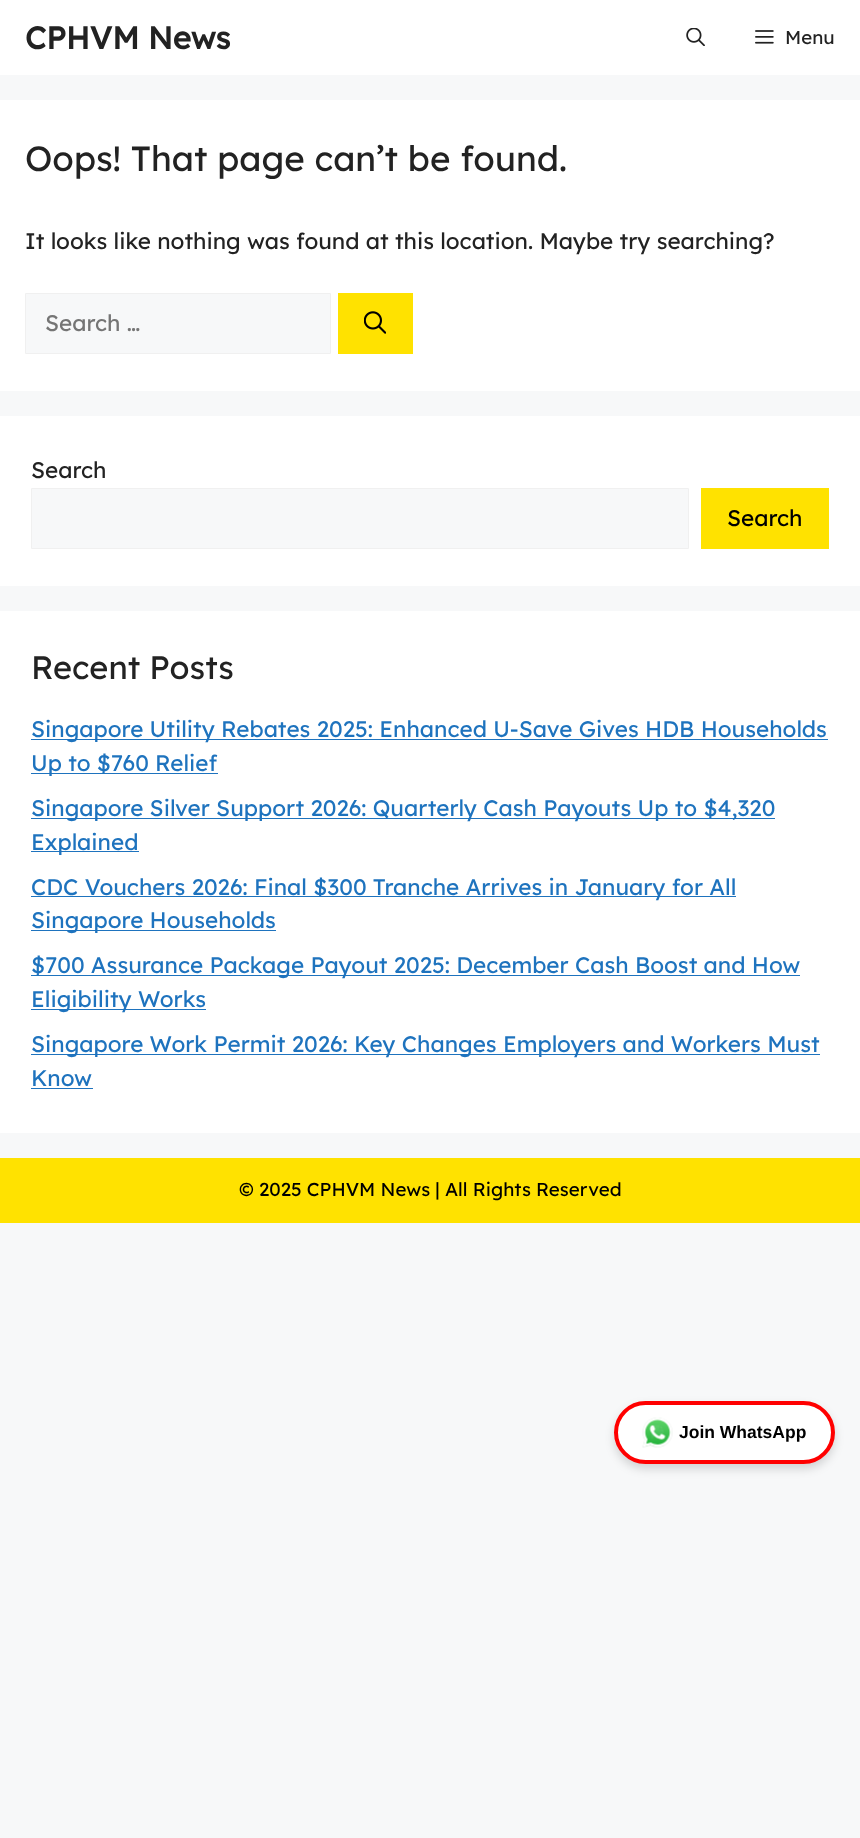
<!DOCTYPE html>
<meta charset="utf-8">
<style>body { margin: 0 } canvas { display: block }</style>
<canvas id="canvas" width="860" height="1838"></canvas>
<script type="module">
  const canvas = document.getElementById("canvas");
  const ctx = canvas.getContext("2d");
  ctx.miterLimit = 4;
  ctx.fontKerning = "normal";
  async function loadImage(src) {
    const img = new Image();
    img.src = src;
    await img.decode();
    return img;
  }

  ctx.fillStyle = "#f7f8f9";
  ctx.fillRect(0, 0, 860, 1838);
  ctx.fillStyle = "#ffffff";
  ctx.fillRect(0, 0, 860, 75);
  ctx.font = "bold 31.25px Lexend Deca";
  ctx.fillStyle = "#222222";
  ctx.fillText("CPHVM News", 25, 49);
  ctx.drawImage(await loadImage("img1.png"), 686, 28, 19, 18);
  ctx.drawImage(await loadImage("img2.png"), 755, 30, 19, 14);
  ctx.font = "18.75px Lexend Deca";
  ctx.fillText("Menu", 785, 44);
  ctx.fillStyle = "#ffffff";
  ctx.fillRect(0, 100, 860, 291);
  ctx.font = "35px Lexend Deca";
  ctx.fillStyle = "#222222";
  ctx.fillText("Oops! That page can’t be found.", 25, 171);
  ctx.font = "22.5px Lexend Deca";
  ctx.fillText("It looks like nothing was found at this location. Maybe try searching?", 25, 249);
  ctx.fillStyle = "#f7f8f9";
  ctx.beginPath();
  ctx.rect(25.5, 293.5, 305, 60);
  ctx.fill();
  ctx.strokeStyle = "#f0f0f0";
  ctx.stroke();
  ctx.fillStyle = "#757575";
  ctx.fillText("Search …", 45, 331);
  ctx.fillStyle = "#ffe200";
  ctx.fillRect(338, 293, 75, 61);
  ctx.drawImage(await loadImage("img3.png"), 364, 311, 22, 23);
  ctx.fillStyle = "#ffffff";
  ctx.fillRect(0, 416, 860, 170);
  ctx.fillStyle = "#222222";
  ctx.fillText("Search", 31, 478);
  ctx.fillStyle = "#f7f8f9";
  ctx.beginPath();
  ctx.rect(31.5, 488.5, 657, 60);
  ctx.fill();
  ctx.stroke();
  ctx.fillStyle = "#ffe200";
  ctx.fillRect(701, 488, 128, 61);
  ctx.fillStyle = "#000000";
  ctx.fillText("Search", 727, 526);
  ctx.fillStyle = "#ffffff";
  ctx.fillRect(0, 611, 860, 522);
  ctx.font = "32.5px Lexend Deca";
  ctx.fillStyle = "#222222";
  ctx.fillText("Recent Posts", 31, 679);
  ctx.fillStyle = "#1e73be";
  ctx.fillRect(31, 739, 797, 1);
  ctx.font = "22.5px Lexend Deca";
  ctx.fillText("Singapore Utility Rebates 2025: Enhanced U-Save Gives HDB Households", 31, 737);
  ctx.fillRect(31, 773, 187, 1);
  ctx.fillText("Up to $760 Relief", 31, 771);
  ctx.fillRect(31, 818, 744, 1);
  ctx.fillText("Singapore Silver Support 2026: Quarterly Cash Payouts Up to $4,320", 31, 816);
  ctx.fillRect(31, 851, 108, 1);
  ctx.fillText("Explained", 31, 850);
  ctx.fillRect(31, 896, 705, 1);
  ctx.fillText("CDC Vouchers 2026: Final $300 Tranche Arrives in January for All", 31, 895);
  ctx.fillRect(31, 930, 245, 1);
  ctx.fillText("Singapore Households", 31, 928);
  ctx.fillRect(31, 975, 769, 1);
  ctx.fillText("$700 Assurance Package Payout 2025: December Cash Boost and How", 31, 973);
  ctx.fillRect(31, 1009, 175, 1);
  ctx.fillText("Eligibility Works", 31, 1007);
  ctx.fillRect(31, 1054, 789, 1);
  ctx.fillText("Singapore Work Permit 2026: Key Changes Employers and Workers Must", 31, 1052);
  ctx.fillText("Know", 31, 1086);
  ctx.fillRect(31, 1088, 62, 1);
  ctx.fillStyle = "#ffe200";
  ctx.fillRect(0, 1158, 860, 65);
  ctx.font = "18.75px Lexend Deca";
  ctx.fillStyle = "#000000";
  ctx.fillText("© 2025 CPHVM News | All Rights Reserved", 239, 1196);
  ctx.fillStyle = "rgba(0, 0, 0, 0.15)";
  ctx.filter = "blur(5px)";
  ctx.beginPath();
  ctx.roundRect(614, 1406, 221, 63, 31.5);
  ctx.fill();
  ctx.filter = "none";
  ctx.fillStyle = "#ffffff";
  ctx.beginPath();
  ctx.roundRect(616, 1403, 217, 59, 29.5);
  ctx.fill();
  ctx.strokeStyle = "#ff0000";
  ctx.lineWidth = 4;
  ctx.stroke();
  ctx.drawImage(await loadImage("img4.png"), 642, 1417, 31, 31);
  ctx.font = "bold 17.5px Liberation Sans";
  ctx.fillStyle = "#000000";
  ctx.fillText("Join WhatsApp", 679, 1438);
</script>
